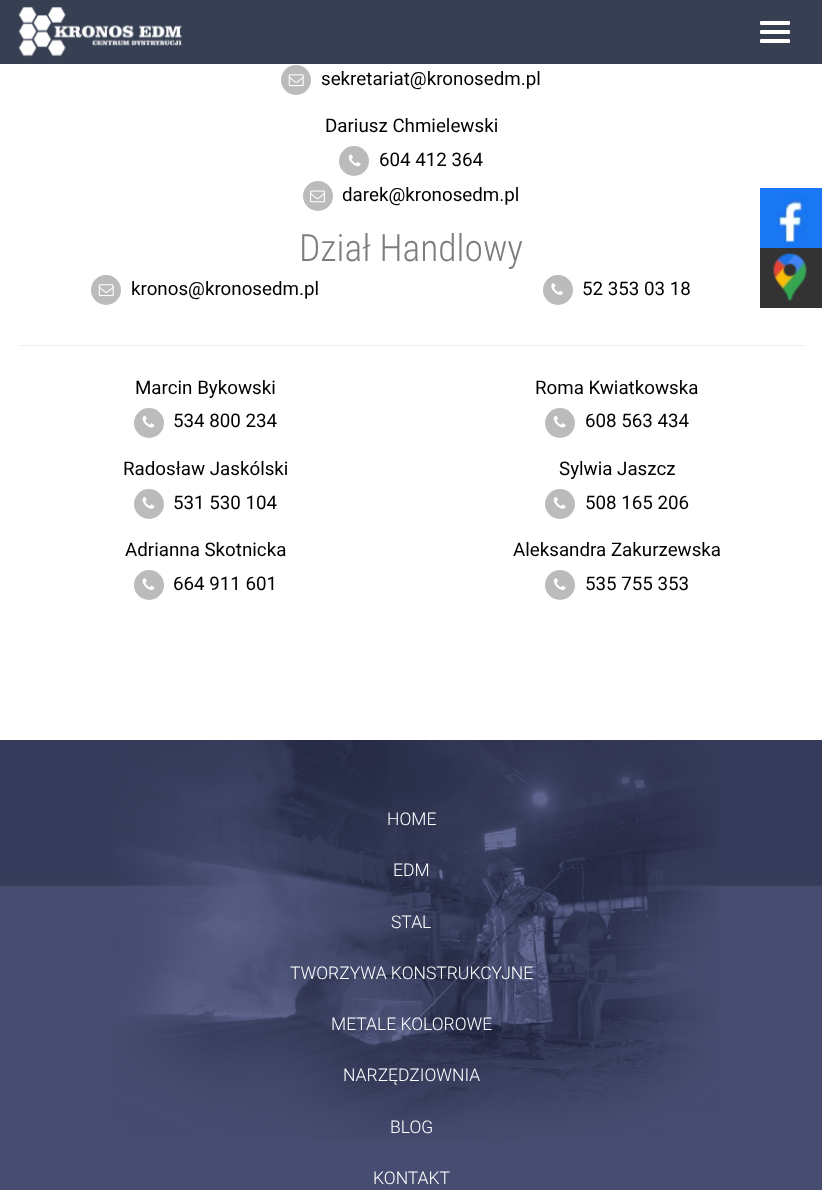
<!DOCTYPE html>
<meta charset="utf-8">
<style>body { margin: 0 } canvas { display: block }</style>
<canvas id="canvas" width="822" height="1190"></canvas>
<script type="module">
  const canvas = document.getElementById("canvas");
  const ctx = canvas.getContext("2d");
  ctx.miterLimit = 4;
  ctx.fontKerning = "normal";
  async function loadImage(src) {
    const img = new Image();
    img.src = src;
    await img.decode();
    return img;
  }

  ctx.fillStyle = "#ffffff";
  ctx.fillRect(0, 0, 822, 1190);
  ctx.fillStyle = "#373f52";
  ctx.fillRect(0, 0, 822, 64);
  ctx.drawImage(await loadImage("img1.png"), 18, 7, 164, 50);
  ctx.fillStyle = "#ffffff";
  ctx.beginPath();
  ctx.roundRect(760, 21, 30, 4, 1);
  ctx.fill();
  ctx.beginPath();
  ctx.roundRect(760, 30, 30, 4, 1);
  ctx.fill();
  ctx.beginPath();
  ctx.roundRect(760, 39, 30, 4, 1);
  ctx.fill();
  ctx.fillStyle = "#bbbbbb";
  ctx.beginPath();
  ctx.arc(296, 80, 15, 0, Math.PI * 2);
  ctx.fill();
  ctx.drawImage(await loadImage("img2.png"), 288, 74, 16, 13);
  ctx.font = "18.75px Roboto";
  ctx.fillStyle = "#000000";
  ctx.fillText("sekretariat@kronosedm.pl", 321, 85);
  ctx.fillText("Dariusz Chmielewski", 325, 132);
  ctx.fillStyle = "#bbbbbb";
  ctx.beginPath();
  ctx.arc(354, 161, 15, 0, Math.PI * 2);
  ctx.fill();
  ctx.drawImage(await loadImage("img3.png"), 348, 154, 13, 13);
  ctx.fillStyle = "#000000";
  ctx.fillText("604 412 364", 379, 166);
  ctx.fillStyle = "#bbbbbb";
  ctx.beginPath();
  ctx.arc(318, 196, 15, 0, Math.PI * 2);
  ctx.fill();
  ctx.drawImage(await loadImage("img4.png"), 310, 190, 15, 13);
  ctx.fillStyle = "#000000";
  ctx.fillText("darek@kronosedm.pl", 342, 201);
  ctx.font = "300 37.5px Roboto Condensed";
  ctx.fillStyle = "#7d7d7d";
  ctx.fillText("Dział Handlowy", 299, 261);
  ctx.fillStyle = "#bbbbbb";
  ctx.beginPath();
  ctx.arc(106, 290, 15, 0, Math.PI * 2);
  ctx.fill();
  ctx.drawImage(await loadImage("img2.png"), 98, 284, 16, 13);
  ctx.font = "18.75px Roboto";
  ctx.fillStyle = "#000000";
  ctx.fillText("kronos@kronosedm.pl", 131, 295);
  ctx.fillStyle = "#bbbbbb";
  ctx.beginPath();
  ctx.arc(558, 290, 15, 0, Math.PI * 2);
  ctx.fill();
  ctx.drawImage(await loadImage("img5.png"), 551, 283, 12, 12);
  ctx.fillStyle = "#000000";
  ctx.fillText("52 353 03 18", 582, 295);
  ctx.fillStyle = "#eeeeee";
  ctx.fillRect(19, 345, 785, 1);
  ctx.fillStyle = "#000000";
  ctx.fillText("Marcin Bykowski", 135, 394);
  ctx.fillStyle = "#bbbbbb";
  ctx.beginPath();
  ctx.arc(149, 423, 15, 0, Math.PI * 2);
  ctx.fill();
  ctx.drawImage(await loadImage("img6.png"), 142, 415, 13, 13);
  ctx.fillStyle = "#000000";
  ctx.fillText("534 800 234", 173, 427);
  ctx.fillText("Radosław Jaskólski", 123, 475);
  ctx.fillStyle = "#bbbbbb";
  ctx.beginPath();
  ctx.arc(149, 504, 15, 0, Math.PI * 2);
  ctx.fill();
  ctx.drawImage(await loadImage("img7.png"), 142, 497, 13, 12);
  ctx.fillStyle = "#000000";
  ctx.fillText("531 530 104", 173, 509);
  ctx.fillText("Adrianna Skotnicka", 125, 556);
  ctx.fillStyle = "#bbbbbb";
  ctx.beginPath();
  ctx.arc(149, 585, 15, 0, Math.PI * 2);
  ctx.fill();
  ctx.drawImage(await loadImage("img8.png"), 142, 578, 13, 12);
  ctx.fillStyle = "#000000";
  ctx.fillText("664 911 601", 173, 590);
  ctx.fillText("Roma Kwiatkowska", 535, 394);
  ctx.fillStyle = "#bbbbbb";
  ctx.beginPath();
  ctx.arc(560, 423, 15, 0, Math.PI * 2);
  ctx.fill();
  ctx.drawImage(await loadImage("img9.png"), 553, 415, 13, 13);
  ctx.fillStyle = "#000000";
  ctx.fillText("608 563 434", 585, 427);
  ctx.fillText("Sylwia Jaszcz", 559, 475);
  ctx.fillStyle = "#bbbbbb";
  ctx.beginPath();
  ctx.arc(560, 504, 15, 0, Math.PI * 2);
  ctx.fill();
  ctx.drawImage(await loadImage("img10.png"), 553, 497, 13, 12);
  ctx.fillStyle = "#000000";
  ctx.fillText("508 165 206", 585, 509);
  ctx.fillText("Aleksandra Zakurzewska", 513, 556);
  ctx.fillStyle = "#bbbbbb";
  ctx.beginPath();
  ctx.arc(560, 585, 15, 0, Math.PI * 2);
  ctx.fill();
  ctx.drawImage(await loadImage("img11.png"), 553, 578, 13, 12);
  ctx.fillStyle = "#000000";
  ctx.fillText("535 755 353", 585, 590);
  ctx.fillStyle = "#474d71";
  ctx.fillRect(0, 887, 822, 303);
  ctx.drawImage(await loadImage("img12.png"), 0, 740, 822, 147);
  ctx.drawImage(await loadImage("img13.png"), 113, 740, 606, 400);
  ctx.font = "300 17.5px Roboto";
  ctx.fillStyle = "#ffffff";
  ctx.fillText("HOME", 387, 825);
  ctx.fillText("EDM", 393, 876);
  ctx.fillText("STAL", 391, 928);
  ctx.fillText("TWORZYWA KONSTRUKCYJNE", 290, 979);
  ctx.fillText("METALE KOLOROWE", 331, 1030);
  ctx.fillText("NARZĘDZIOWNIA", 343, 1081);
  ctx.fillText("BLOG", 390, 1133);
  ctx.fillText("KONTAKT", 373, 1184);
  ctx.fillStyle = "#1977f3";
  ctx.fillRect(760, 188, 62, 60);
  ctx.drawImage(await loadImage("img14.png"), 776, 194, 31, 48);
  ctx.fillStyle = "#333333";
  ctx.fillRect(760, 248, 62, 60);
  ctx.drawImage(await loadImage("img15.png"), 773, 253, 34, 48);
</script>
